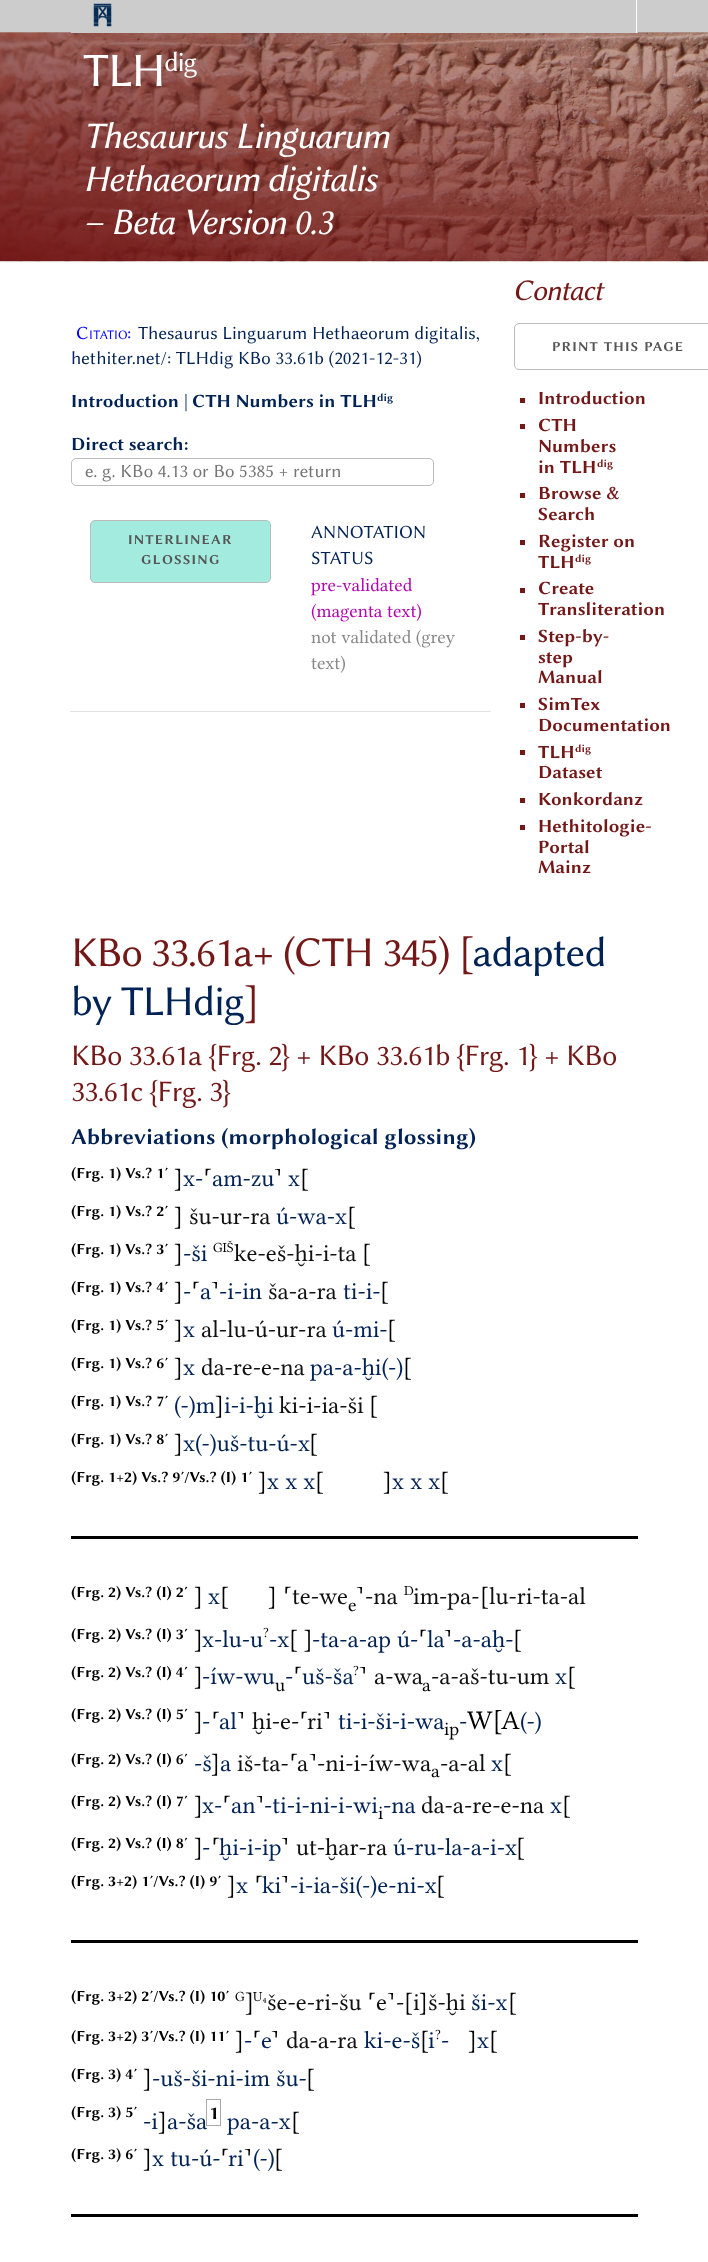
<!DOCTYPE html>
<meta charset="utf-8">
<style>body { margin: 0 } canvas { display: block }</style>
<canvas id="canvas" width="708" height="2262"></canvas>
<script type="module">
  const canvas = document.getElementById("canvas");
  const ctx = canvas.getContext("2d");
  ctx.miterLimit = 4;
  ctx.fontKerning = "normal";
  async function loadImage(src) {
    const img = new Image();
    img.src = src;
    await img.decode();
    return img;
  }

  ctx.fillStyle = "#ffffff";
  ctx.fillRect(0, 0, 708, 2262);
  ctx.fillStyle = "#cccccc";
  ctx.fillRect(0, 0, 708, 33);
  ctx.drawImage(await loadImage("img2.png"), 0, 32, 708, 230);
  ctx.fillRect(71, 32, 567, 1);
  ctx.fillStyle = "#ffffff";
  ctx.fillRect(636, 0, 1, 33);
  ctx.drawImage(await loadImage("img1.png"), 93, 3, 19, 24);
  ctx.letterSpacing = "-1.25px";
  ctx.font = "48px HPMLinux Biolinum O";
  ctx.fillText("TLH", 83, 86);
  ctx.font = "28px HPMLinux Biolinum O";
  ctx.fillText("dig", 164, 71);
  ctx.letterSpacing = "-1px";
  ctx.font = "italic 37.5px HPMLinux Biolinum O";
  ctx.fillText("Thesaurus Linguarum", 83, 148);
  ctx.fillText("Hethaeorum digitalis", 83, 191);
  ctx.fillText("– Beta Version 0.3", 83, 234);
  ctx.letterSpacing = "-0.6px";
  ctx.font = "italic 30px HPMLinux Biolinum O";
  ctx.fillStyle = "#731717";
  ctx.fillText("Contact", 513, 300);
  ctx.letterSpacing = "0px";
  ctx.font = "18.75px HPMLinux Biolinum O";
  ctx.fillStyle = "#0000ff";
  ctx.fillText("C", 76, 339);
  ctx.font = "13px HPMLinux Biolinum O";
  ctx.fillText("ITATIO", 89, 339);
  ctx.font = "18.75px HPMLinux Biolinum O";
  ctx.fillText(":", 127, 339);
  ctx.fillStyle = "#002255";
  ctx.fillText("Thesaurus Linguarum Hethaeorum digitalis,", 138, 339);
  ctx.fillText("hethiter.net/: TLHdig KBo 33.61b (2021-12-31)", 71, 364);
  ctx.beginPath();
  ctx.roundRect(514.5, 323.5, 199, 46, 4.5);
  ctx.strokeStyle = "#bbbbbb";
  ctx.stroke();
  ctx.letterSpacing = "1.25px";
  ctx.font = "bold 13.75px HPMLinux Biolinum O";
  ctx.fillStyle = "#555555";
  ctx.fillText("PRINT THIS PAGE", 552, 351);
  ctx.letterSpacing = "0px";
  ctx.font = "bold 18.75px HPMLinux Biolinum O";
  ctx.fillStyle = "#002255";
  ctx.fillText("Introduction", 71, 407);
  ctx.font = "18.75px HPMLinux Biolinum O";
  ctx.fillText("|", 184, 407);
  ctx.font = "bold 18.75px HPMLinux Biolinum O";
  ctx.fillText("CTH Numbers in TLH", 192, 407);
  ctx.font = "bold 11px HPMLinux Biolinum O";
  ctx.fillText("dig", 377, 401);
  ctx.font = "bold 18.75px HPMLinux Biolinum O";
  ctx.fillText("Direct search:", 71, 450);
  ctx.beginPath();
  ctx.roundRect(71.5, 458.5, 362, 27, 4.5);
  ctx.stroke();
  ctx.font = "18.75px HPMLinux Biolinum O";
  ctx.fillStyle = "#757575";
  ctx.fillText("e. g. KBo 4.13 or Bo 5385 + return", 85, 477);
  ctx.fillStyle = "#a2ebde";
  ctx.beginPath();
  ctx.roundRect(90.5, 520.5, 180, 62, 4.5);
  ctx.fill();
  ctx.stroke();
  ctx.letterSpacing = "1.25px";
  ctx.font = "bold 13.75px HPMLinux Biolinum O";
  ctx.fillStyle = "#555555";
  ctx.fillText("INTERLINEAR", 128, 544);
  ctx.fillText("GLOSSING", 141, 564);
  ctx.fillStyle = "#e1e1e1";
  ctx.fillRect(70, 711, 421, 1);
  ctx.letterSpacing = "0px";
  ctx.font = "18.75px HPMLinux Biolinum O";
  ctx.fillStyle = "#002255";
  ctx.fillText("ANNOTATION", 311, 538);
  ctx.fillText("STATUS", 311, 564);
  ctx.font = "18.75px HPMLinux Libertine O";
  ctx.fillStyle = "#b404ae";
  ctx.fillText("pre-validated", 311, 591);
  ctx.fillText("(magenta text)", 311, 617);
  ctx.fillStyle = "#888888";
  ctx.fillText("not validated (grey", 311, 643);
  ctx.fillText("text)", 311, 669);
  ctx.fillStyle = "#731717";
  ctx.fillRect(520, 398, 5, 5);
  ctx.font = "bold 18.75px HPMLinux Biolinum O";
  ctx.fillText("Introduction", 538, 404);
  ctx.fillRect(520, 424, 5, 5);
  ctx.fillText("CTH", 538, 431);
  ctx.fillText("Numbers", 538, 452);
  ctx.fillText("in TLH", 538, 473);
  ctx.font = "bold 11px HPMLinux Biolinum O";
  ctx.fillText("dig", 597, 467);
  ctx.fillRect(520, 493, 5, 5);
  ctx.font = "bold 18.75px HPMLinux Biolinum O";
  ctx.fillText("Browse &", 538, 499);
  ctx.fillText("Search", 538, 520);
  ctx.fillRect(520, 540, 5, 5);
  ctx.fillText("Register on", 538, 547);
  ctx.fillText("TLH", 538, 568);
  ctx.font = "bold 11px HPMLinux Biolinum O";
  ctx.fillText("dig", 575, 562);
  ctx.fillRect(520, 588, 5, 5);
  ctx.font = "bold 18.75px HPMLinux Biolinum O";
  ctx.fillText("Create", 538, 594);
  ctx.fillText("Transliteration", 538, 615);
  ctx.fillRect(520, 635, 5, 5);
  ctx.fillText("Step-by-", 538, 642);
  ctx.fillText("step", 538, 663);
  ctx.fillText("Manual", 538, 683);
  ctx.fillRect(520, 703, 5, 5);
  ctx.fillText("SimTex", 538, 710);
  ctx.fillText("Documentation", 538, 731);
  ctx.fillRect(520, 750, 5, 5);
  ctx.fillText("TLH", 538, 758);
  ctx.font = "bold 11px HPMLinux Biolinum O";
  ctx.fillText("dig", 575, 752);
  ctx.font = "bold 18.75px HPMLinux Biolinum O";
  ctx.fillText("Dataset", 538, 778);
  ctx.fillRect(520, 798, 5, 5);
  ctx.fillText("Konkordanz", 538, 805);
  ctx.fillRect(520, 825, 5, 5);
  ctx.fillText("Hethitologie-", 538, 832);
  ctx.fillText("Portal", 538, 853);
  ctx.fillText("Mainz", 538, 873);
  ctx.letterSpacing = "-1.25px";
  ctx.font = "42.5px HPMLinux Biolinum O";
  ctx.fillText("KBo 33.61a+", 71, 966);
  ctx.fillText("(CTH 345) [", 283, 966);
  ctx.fillStyle = "#002255";
  ctx.fillText("adapted", 472, 966);
  ctx.fillText("by TLHdig", 71, 1015);
  ctx.fillStyle = "#731717";
  ctx.fillText("]", 244, 1015);
  ctx.letterSpacing = "-0.6px";
  ctx.font = "30px HPMLinux Biolinum O";
  ctx.fillText("KBo 33.61a {Frg. 2} + KBo 33.61b {Frg. 1} + KBo", 71, 1065);
  ctx.fillText("33.61c {Frg. 3}", 71, 1101);
  ctx.letterSpacing = "0px";
  ctx.font = "bold 22.5px HPMLinux Biolinum O";
  ctx.fillStyle = "#002255";
  ctx.fillText("Abbreviations (morphological glossing)", 71, 1144);
  ctx.font = "bold 15.6px HPMLinux Biolinum O";
  ctx.fillStyle = "#000000";
  ctx.fillText("(Frg. 1) Vs.? 1′", 71, 1178);
  ctx.font = "24.5px HPMLinux Libertine O";
  ctx.fillText("]", 174, 1186);
  ctx.fillStyle = "#002255";
  ctx.fillText("x-", 183, 1186);
  ctx.fillStyle = "#000000";
  ctx.fillText("⸢", 203, 1186);
  ctx.fillStyle = "#002255";
  ctx.fillText("am-zu", 212, 1186);
  ctx.fillStyle = "#000000";
  ctx.fillText("⸣", 274, 1186);
  ctx.fillStyle = "#002255";
  ctx.fillText("x", 288, 1186);
  ctx.fillStyle = "#000000";
  ctx.fillText("[", 300, 1186);
  ctx.font = "bold 15.6px HPMLinux Biolinum O";
  ctx.fillText("(Frg. 1) Vs.? 2′", 71, 1216);
  ctx.font = "24.5px HPMLinux Libertine O";
  ctx.fillText("]", 174, 1224);
  ctx.fillStyle = "#111111";
  ctx.fillText("šu-ur-ra", 189, 1224);
  ctx.fillStyle = "#002255";
  ctx.fillText("ú-wa-x", 276, 1224);
  ctx.fillStyle = "#000000";
  ctx.fillText("[", 347, 1224);
  ctx.font = "bold 15.6px HPMLinux Biolinum O";
  ctx.fillText("(Frg. 1) Vs.? 3′", 71, 1254);
  ctx.font = "24.5px HPMLinux Libertine O";
  ctx.fillText("]", 174, 1261);
  ctx.fillStyle = "#002255";
  ctx.fillText("-ši", 183, 1261);
  ctx.font = "14px HPMLinux Libertine O";
  ctx.fillStyle = "#000000";
  ctx.fillText("GIŠ", 213, 1252);
  ctx.font = "24.5px HPMLinux Libertine O";
  ctx.fillStyle = "#111111";
  ctx.fillText("ke-eš-ḫi-i-ta", 234, 1261);
  ctx.fillStyle = "#000000";
  ctx.fillText("[", 362, 1261);
  ctx.font = "bold 15.6px HPMLinux Biolinum O";
  ctx.fillText("(Frg. 1) Vs.? 4′", 71, 1292);
  ctx.font = "24.5px HPMLinux Libertine O";
  ctx.fillText("]", 174, 1299);
  ctx.fillStyle = "#002255";
  ctx.fillText("-", 183, 1299);
  ctx.fillStyle = "#000000";
  ctx.fillText("⸢", 191, 1299);
  ctx.fillStyle = "#002255";
  ctx.fillText("a", 200, 1299);
  ctx.fillStyle = "#000000";
  ctx.fillText("⸣", 211, 1299);
  ctx.fillStyle = "#002255";
  ctx.fillText("-i-in", 219, 1299);
  ctx.fillStyle = "#111111";
  ctx.fillText("ša-a-ra", 268, 1299);
  ctx.fillStyle = "#002255";
  ctx.fillText("ti-i-", 343, 1299);
  ctx.fillStyle = "#000000";
  ctx.fillText("[", 380, 1299);
  ctx.font = "bold 15.6px HPMLinux Biolinum O";
  ctx.fillText("(Frg. 1) Vs.? 5′", 71, 1330);
  ctx.font = "24.5px HPMLinux Libertine O";
  ctx.fillText("]", 174, 1337);
  ctx.fillStyle = "#002255";
  ctx.fillText("x", 183, 1337);
  ctx.fillStyle = "#111111";
  ctx.fillText("al-lu-ú-ur-ra", 201, 1337);
  ctx.fillStyle = "#002255";
  ctx.fillText("ú-mi-", 332, 1337);
  ctx.fillStyle = "#000000";
  ctx.fillText("[", 387, 1337);
  ctx.font = "bold 15.6px HPMLinux Biolinum O";
  ctx.fillText("(Frg. 1) Vs.? 6′", 71, 1368);
  ctx.font = "24.5px HPMLinux Libertine O";
  ctx.fillText("]", 174, 1375);
  ctx.fillStyle = "#002255";
  ctx.fillText("x", 183, 1375);
  ctx.fillStyle = "#111111";
  ctx.fillText("da-re-e-na", 201, 1375);
  ctx.fillStyle = "#002255";
  ctx.fillText("pa-a-ḫi(-)", 310, 1375);
  ctx.fillStyle = "#000000";
  ctx.fillText("[", 403, 1375);
  ctx.font = "bold 15.6px HPMLinux Biolinum O";
  ctx.fillText("(Frg. 1) Vs.? 7′", 71, 1406);
  ctx.font = "24.5px HPMLinux Libertine O";
  ctx.fillStyle = "#002255";
  ctx.fillText("(-)m", 174, 1413);
  ctx.fillStyle = "#000000";
  ctx.fillText("]", 215, 1413);
  ctx.fillStyle = "#002255";
  ctx.fillText("i-i-ḫi", 224, 1413);
  ctx.fillStyle = "#111111";
  ctx.fillText("ki-i-ia-ši", 279, 1413);
  ctx.fillStyle = "#000000";
  ctx.fillText("[", 369, 1413);
  ctx.font = "bold 15.6px HPMLinux Biolinum O";
  ctx.fillText("(Frg. 1) Vs.? 8′", 71, 1444);
  ctx.font = "24.5px HPMLinux Libertine O";
  ctx.fillText("]", 174, 1451);
  ctx.fillStyle = "#002255";
  ctx.fillText("x(-)uš-tu-ú-x", 183, 1451);
  ctx.fillStyle = "#000000";
  ctx.fillText("[", 309, 1451);
  ctx.font = "bold 15.6px HPMLinux Biolinum O";
  ctx.fillText("(Frg. 1+2) Vs.? 9′/Vs.? (I) 1′", 71, 1482);
  ctx.font = "24.5px HPMLinux Libertine O";
  ctx.fillText("]", 258, 1489);
  ctx.fillStyle = "#002255";
  ctx.fillText("x x x", 267, 1489);
  ctx.fillStyle = "#000000";
  ctx.fillText("[", 315, 1489);
  ctx.fillText("]", 383, 1489);
  ctx.fillStyle = "#002255";
  ctx.fillText("x x x", 392, 1489);
  ctx.fillStyle = "#000000";
  ctx.fillText("[", 440, 1489);
  ctx.fillRect(71, 1536, 567, 3);
  ctx.font = "bold 15.6px HPMLinux Biolinum O";
  ctx.fillText("(Frg. 2) Vs.? (I) 2′", 71, 1597);
  ctx.font = "24.5px HPMLinux Libertine O";
  ctx.fillText("]", 194, 1604);
  ctx.fillStyle = "#002255";
  ctx.fillText("x", 208, 1604);
  ctx.fillStyle = "#000000";
  ctx.fillText("[", 220, 1604);
  ctx.fillText("] ⸢", 268, 1604);
  ctx.fillStyle = "#111111";
  ctx.fillText("te-we", 292, 1604);
  ctx.fillStyle = "#000000";
  ctx.fillText("⸣", 356, 1604);
  ctx.fillStyle = "#111111";
  ctx.fillText("-na", 365, 1604);
  ctx.font = "14px HPMLinux Libertine O";
  ctx.fillStyle = "#000000";
  ctx.fillText("D", 404, 1595);
  ctx.font = "24.5px HPMLinux Libertine O";
  ctx.fillStyle = "#111111";
  ctx.fillText("im-pa-", 413, 1604);
  ctx.fillStyle = "#000000";
  ctx.fillText("[", 480, 1604);
  ctx.fillStyle = "#111111";
  ctx.fillText("lu-ri-ta-al", 489, 1604);
  ctx.font = "19px HPMLinux Libertine O";
  ctx.fillStyle = "#000000";
  ctx.fillText("e", 348, 1611);
  ctx.font = "bold 15.6px HPMLinux Biolinum O";
  ctx.fillText("(Frg. 2) Vs.? (I) 3′", 71, 1639);
  ctx.font = "24.5px HPMLinux Libertine O";
  ctx.fillText("]", 194, 1647);
  ctx.fillStyle = "#002255";
  ctx.fillText("x-lu-u", 202, 1647);
  ctx.font = "14px HPMLinux Biolinum O";
  ctx.fillStyle = "#000000";
  ctx.fillText("?", 263, 1637);
  ctx.font = "24.5px HPMLinux Libertine O";
  ctx.fillStyle = "#002255";
  ctx.fillText("-x", 269, 1647);
  ctx.fillStyle = "#000000";
  ctx.fillText("[ ]", 289, 1647);
  ctx.fillStyle = "#002255";
  ctx.fillText("-ta-a-ap ú-", 312, 1647);
  ctx.fillStyle = "#000000";
  ctx.fillText("⸢", 418, 1647);
  ctx.fillStyle = "#002255";
  ctx.fillText("la", 427, 1647);
  ctx.fillStyle = "#000000";
  ctx.fillText("⸣", 444, 1647);
  ctx.fillStyle = "#002255";
  ctx.fillText("-a-aḫ-", 453, 1647);
  ctx.fillStyle = "#000000";
  ctx.fillText("[", 513, 1647);
  ctx.font = "bold 15.6px HPMLinux Biolinum O";
  ctx.fillText("(Frg. 2) Vs.? (I) 4′", 71, 1677);
  ctx.font = "24.5px HPMLinux Libertine O";
  ctx.fillText("]", 194, 1684);
  ctx.fillStyle = "#002255";
  ctx.fillText("-íw-wu", 202, 1684);
  ctx.fillText("-", 285, 1684);
  ctx.fillStyle = "#000000";
  ctx.fillText("⸢", 293, 1684);
  ctx.fillStyle = "#002255";
  ctx.fillText("uš-ša", 302, 1684);
  ctx.font = "14px HPMLinux Biolinum O";
  ctx.fillStyle = "#000000";
  ctx.fillText("?", 353, 1675);
  ctx.font = "24.5px HPMLinux Libertine O";
  ctx.fillText("⸣", 359, 1684);
  ctx.fillStyle = "#111111";
  ctx.fillText("a-wa", 374, 1684);
  ctx.fillText("-a-aš-tu-um", 431, 1684);
  ctx.fillStyle = "#002255";
  ctx.fillText("x", 555, 1684);
  ctx.fillStyle = "#000000";
  ctx.fillText("[", 567, 1684);
  ctx.font = "19px HPMLinux Libertine O";
  ctx.fillText("u", 275, 1691);
  ctx.fillText("a", 422, 1691);
  ctx.font = "bold 15.6px HPMLinux Biolinum O";
  ctx.fillText("(Frg. 2) Vs.? (I) 5′", 71, 1719);
  ctx.font = "24.5px HPMLinux Libertine O";
  ctx.fillText("]", 194, 1729);
  ctx.fillStyle = "#002255";
  ctx.fillText("-", 202, 1729);
  ctx.fillStyle = "#000000";
  ctx.fillText("⸢", 211, 1729);
  ctx.fillStyle = "#002255";
  ctx.fillText("al", 219, 1729);
  ctx.fillStyle = "#000000";
  ctx.fillText("⸣", 237, 1729);
  ctx.fillStyle = "#111111";
  ctx.fillText("ḫi-e-", 252, 1729);
  ctx.fillStyle = "#000000";
  ctx.fillText("⸢", 299, 1729);
  ctx.fillStyle = "#111111";
  ctx.fillText("ri", 307, 1729);
  ctx.fillStyle = "#000000";
  ctx.fillText("⸣", 323, 1729);
  ctx.fillStyle = "#002255";
  ctx.fillText("ti-i-ši-i-wa", 338, 1729);
  ctx.font = "19px HPMLinux Libertine O";
  ctx.fillStyle = "#000000";
  ctx.fillText("ip", 444, 1735);
  ctx.font = "24.5px HPMLinux Libertine O";
  ctx.fillStyle = "#002255";
  ctx.fillText("-", 459, 1729);
  ctx.font = "27px HPMLinux Libertine O";
  ctx.fillStyle = "#000000";
  ctx.fillText("W[", 467, 1729);
  ctx.fillText("A", 501, 1729);
  ctx.font = "24.5px HPMLinux Libertine O";
  ctx.fillStyle = "#002255";
  ctx.fillText("(-)", 520, 1729);
  ctx.font = "bold 15.6px HPMLinux Biolinum O";
  ctx.fillStyle = "#000000";
  ctx.fillText("(Frg. 2) Vs.? (I) 6′", 71, 1764);
  ctx.font = "24.5px HPMLinux Libertine O";
  ctx.fillStyle = "#002255";
  ctx.fillText("-š", 194, 1771);
  ctx.fillStyle = "#000000";
  ctx.fillText("]", 211, 1771);
  ctx.fillStyle = "#002255";
  ctx.fillText("a", 220, 1771);
  ctx.fillStyle = "#111111";
  ctx.fillText("iš-ta-", 237, 1771);
  ctx.fillStyle = "#000000";
  ctx.fillText("⸢", 289, 1771);
  ctx.fillStyle = "#111111";
  ctx.fillText("a", 297, 1771);
  ctx.fillStyle = "#000000";
  ctx.fillText("⸣", 309, 1771);
  ctx.fillStyle = "#111111";
  ctx.fillText("-ni-i-íw-wa", 317, 1771);
  ctx.fillText("-a-al", 440, 1771);
  ctx.fillStyle = "#002255";
  ctx.fillText("x", 491, 1771);
  ctx.fillStyle = "#000000";
  ctx.fillText("[", 503, 1771);
  ctx.font = "19px HPMLinux Libertine O";
  ctx.fillText("a", 431, 1777);
  ctx.font = "bold 15.6px HPMLinux Biolinum O";
  ctx.fillText("(Frg. 2) Vs.? (I) 7′", 71, 1806);
  ctx.font = "24.5px HPMLinux Libertine O";
  ctx.fillText("]", 194, 1813);
  ctx.fillStyle = "#002255";
  ctx.fillText("x-", 202, 1813);
  ctx.fillStyle = "#000000";
  ctx.fillText("⸢", 222, 1813);
  ctx.fillStyle = "#002255";
  ctx.fillText("an", 231, 1813);
  ctx.fillStyle = "#000000";
  ctx.fillText("⸣", 256, 1813);
  ctx.fillStyle = "#002255";
  ctx.fillText("-ti-i-ni-i-wi", 264, 1813);
  ctx.font = "19px HPMLinux Libertine O";
  ctx.fillStyle = "#000000";
  ctx.fillText("i", 378, 1819);
  ctx.font = "24.5px HPMLinux Libertine O";
  ctx.fillStyle = "#002255";
  ctx.fillText("-na", 383, 1813);
  ctx.fillStyle = "#111111";
  ctx.fillText("da-a-re-e-na", 421, 1813);
  ctx.fillStyle = "#002255";
  ctx.fillText("x", 550, 1813);
  ctx.fillStyle = "#000000";
  ctx.fillText("[", 562, 1813);
  ctx.font = "bold 15.6px HPMLinux Biolinum O";
  ctx.fillText("(Frg. 2) Vs.? (I) 8′", 71, 1848);
  ctx.font = "24.5px HPMLinux Libertine O";
  ctx.fillText("]", 194, 1855);
  ctx.fillStyle = "#002255";
  ctx.fillText("-", 202, 1855);
  ctx.fillStyle = "#000000";
  ctx.fillText("⸢", 211, 1855);
  ctx.fillStyle = "#002255";
  ctx.fillText("ḫi-i-ip", 219, 1855);
  ctx.fillStyle = "#000000";
  ctx.fillText("⸣", 281, 1855);
  ctx.fillStyle = "#111111";
  ctx.fillText("ut-ḫar-ra", 296, 1855);
  ctx.fillStyle = "#002255";
  ctx.fillText("ú-ru-la-a-i-x", 393, 1855);
  ctx.fillStyle = "#000000";
  ctx.fillText("[", 516, 1855);
  ctx.font = "bold 15.6px HPMLinux Biolinum O";
  ctx.fillText("(Frg. 3+2) 1′/Vs.? (I) 9′", 71, 1886);
  ctx.font = "24.5px HPMLinux Libertine O";
  ctx.fillText("]", 227, 1893);
  ctx.fillStyle = "#002255";
  ctx.fillText("x", 236, 1893);
  ctx.fillStyle = "#000000";
  ctx.fillText("⸢", 254, 1893);
  ctx.fillStyle = "#002255";
  ctx.fillText("ki", 262, 1893);
  ctx.fillStyle = "#000000";
  ctx.fillText("⸣", 281, 1893);
  ctx.fillStyle = "#002255";
  ctx.fillText("-i-ia-ši(-)e-ni-x", 290, 1893);
  ctx.fillStyle = "#000000";
  ctx.fillText("[", 436, 1893);
  ctx.fillRect(71, 1940, 567, 3);
  ctx.font = "bold 15.6px HPMLinux Biolinum O";
  ctx.fillText("(Frg. 3+2) 2′/Vs.? (I) 10′", 71, 2001);
  ctx.font = "14px HPMLinux Libertine O";
  ctx.fillText("G", 235, 2001);
  ctx.font = "25px HPMLinux Libertine O";
  ctx.fillText("]", 245, 2010);
  ctx.font = "14px HPMLinux Libertine O";
  ctx.fillText("U₄", 253, 2001);
  ctx.font = "24.5px HPMLinux Libertine O";
  ctx.fillStyle = "#111111";
  ctx.fillText("še-e-ri-šu", 267, 2010);
  ctx.fillStyle = "#000000";
  ctx.fillText("⸢", 367, 2010);
  ctx.fillStyle = "#111111";
  ctx.fillText("e", 376, 2010);
  ctx.fillStyle = "#000000";
  ctx.fillText("⸣", 387, 2010);
  ctx.fillStyle = "#111111";
  ctx.fillText("-", 396, 2010);
  ctx.fillStyle = "#000000";
  ctx.fillText("[", 404, 2010);
  ctx.fillStyle = "#111111";
  ctx.fillText("i", 413, 2010);
  ctx.fillStyle = "#000000";
  ctx.fillText("]", 419, 2010);
  ctx.fillStyle = "#111111";
  ctx.fillText("š-ḫi", 428, 2010);
  ctx.fillStyle = "#002255";
  ctx.fillText("ši-x", 471, 2010);
  ctx.fillStyle = "#000000";
  ctx.fillText("[", 508, 2010);
  ctx.font = "bold 15.6px HPMLinux Biolinum O";
  ctx.fillText("(Frg. 3+2) 3′/Vs.? (I) 11′", 71, 2041);
  ctx.font = "24.5px HPMLinux Libertine O";
  ctx.fillText("]", 235, 2048);
  ctx.fillStyle = "#002255";
  ctx.fillText("-", 244, 2048);
  ctx.fillStyle = "#000000";
  ctx.fillText("⸢", 252, 2048);
  ctx.fillStyle = "#002255";
  ctx.fillText("e", 261, 2048);
  ctx.fillStyle = "#000000";
  ctx.fillText("⸣", 271, 2048);
  ctx.fillStyle = "#111111";
  ctx.fillText("da-a-ra", 286, 2048);
  ctx.fillStyle = "#002255";
  ctx.fillText("ki-e-š", 364, 2048);
  ctx.fillStyle = "#000000";
  ctx.fillText("[", 420, 2048);
  ctx.fillStyle = "#002255";
  ctx.fillText("i", 428, 2048);
  ctx.font = "14px HPMLinux Biolinum O";
  ctx.fillStyle = "#000000";
  ctx.fillText("?", 435, 2039);
  ctx.font = "24.5px HPMLinux Libertine O";
  ctx.fillStyle = "#002255";
  ctx.fillText("-", 441, 2048);
  ctx.fillStyle = "#000000";
  ctx.fillText("]", 468, 2048);
  ctx.fillStyle = "#002255";
  ctx.fillText("x", 477, 2048);
  ctx.fillStyle = "#000000";
  ctx.fillText("[", 489, 2048);
  ctx.font = "bold 15.6px HPMLinux Biolinum O";
  ctx.fillText("(Frg. 3) 4′", 71, 2079);
  ctx.font = "24.5px HPMLinux Libertine O";
  ctx.fillText("]", 143, 2086);
  ctx.fillStyle = "#002255";
  ctx.fillText("-uš-ši-ni-im šu-", 152, 2086);
  ctx.fillStyle = "#000000";
  ctx.fillText("[", 306, 2086);
  ctx.font = "bold 15.6px HPMLinux Biolinum O";
  ctx.fillText("(Frg. 3) 5′", 71, 2117);
  ctx.font = "24.5px HPMLinux Libertine O";
  ctx.fillStyle = "#002255";
  ctx.fillText("-i", 143, 2129);
  ctx.fillStyle = "#000000";
  ctx.fillText("]", 158, 2129);
  ctx.fillStyle = "#002255";
  ctx.fillText("a-ša", 167, 2129);
  ctx.strokeStyle = "#a9a9a9";
  ctx.strokeRect(206.5, 2099.5, 14, 26);
  ctx.font = "bold 19px HPMLinux Biolinum O";
  ctx.fillStyle = "#000000";
  ctx.fillText("1", 209, 2119);
  ctx.font = "24.5px HPMLinux Libertine O";
  ctx.fillStyle = "#002255";
  ctx.fillText("pa-a-x", 227, 2129);
  ctx.fillStyle = "#000000";
  ctx.fillText("[", 291, 2129);
  ctx.font = "bold 15.6px HPMLinux Biolinum O";
  ctx.fillText("(Frg. 3) 6′", 71, 2159);
  ctx.font = "24.5px HPMLinux Libertine O";
  ctx.fillText("]", 143, 2166);
  ctx.fillStyle = "#002255";
  ctx.fillText("x tu-ú-", 152, 2166);
  ctx.fillStyle = "#000000";
  ctx.fillText("⸢", 220, 2166);
  ctx.fillStyle = "#002255";
  ctx.fillText("ri", 228, 2166);
  ctx.fillStyle = "#000000";
  ctx.fillText("⸣", 244, 2166);
  ctx.fillStyle = "#002255";
  ctx.fillText("(-)", 253, 2166);
  ctx.fillStyle = "#000000";
  ctx.fillText("[", 274, 2166);
  ctx.fillRect(71, 2214, 567, 3);
</script>
